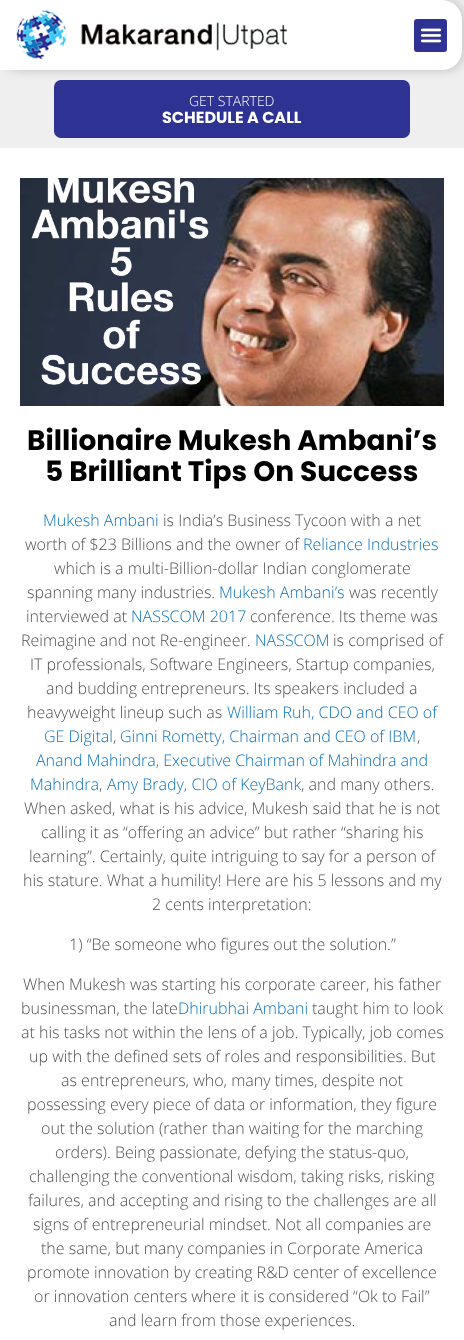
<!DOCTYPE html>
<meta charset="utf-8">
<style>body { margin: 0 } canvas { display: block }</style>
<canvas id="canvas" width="464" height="1340"></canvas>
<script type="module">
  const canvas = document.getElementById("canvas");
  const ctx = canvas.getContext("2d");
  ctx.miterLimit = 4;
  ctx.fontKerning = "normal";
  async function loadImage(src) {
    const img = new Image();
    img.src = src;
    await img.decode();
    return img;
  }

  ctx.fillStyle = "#ffffff";
  ctx.fillRect(0, 0, 464, 1340);
  ctx.fillStyle = "#efefef";
  ctx.fillRect(0, 0, 464, 148);
  ctx.fillStyle = "rgba(0, 0, 0, 0.2)";
  ctx.filter = "blur(5.5px)";
  ctx.beginPath();
  ctx.roundRect(2, 0, 462, 70, 20);
  ctx.fill();
  ctx.filter = "none";
  ctx.fillStyle = "#ffffff";
  ctx.beginPath();
  ctx.roundRect(0, 0, 462, 70, [0, 20, 20, 0]);
  ctx.fill();
  ctx.drawImage(await loadImage("img1.png"), 16, 10, 271, 50);
  ctx.fillStyle = "#2e3292";
  ctx.beginPath();
  ctx.roundRect(414, 19, 33, 33, 3);
  ctx.fill();
  ctx.drawImage(await loadImage("img2.png"), 420, 28, 22, 15);
  ctx.beginPath();
  ctx.roundRect(54, 80, 356, 58, 7);
  ctx.fill();
  ctx.font = "300 14px Open Sans";
  ctx.fillStyle = "#ffffff";
  ctx.fillText("GET STARTED", 189, 106);
  ctx.font = "bold 16px Poppins";
  ctx.fillText("SCHEDULE A CALL", 162, 123);
  ctx.drawImage(await loadImage("img3.png"), 20, 178, 424, 228);
  ctx.font = "bold 28px Poppins";
  ctx.fillStyle = "#000000";
  ctx.fillText("Billionaire Mukesh Ambani’s", 27, 450);
  ctx.fillText("5 Brilliant Tips On Success", 45, 481);
  ctx.font = "300 16px Open Sans";
  ctx.fillStyle = "#0b72bb";
  ctx.fillText("Mukesh Ambani", 43, 526);
  ctx.fillStyle = "#505050";
  ctx.fillText("is India’s Business Tycoon with a net", 163, 526);
  ctx.fillText("worth of $23 Billions and the owner of", 25, 550);
  ctx.fillStyle = "#0b72bb";
  ctx.fillText("Reliance Industries", 303, 550);
  ctx.fillStyle = "#505050";
  ctx.fillText("which is a multi-Billion-dollar Indian conglomerate", 54, 574);
  ctx.fillText("spanning many industries.", 27, 598);
  ctx.fillStyle = "#0b72bb";
  ctx.fillText("Mukesh Ambani’s", 219, 598);
  ctx.fillStyle = "#505050";
  ctx.fillText("was recently", 349, 598);
  ctx.fillText("interviewed at", 26, 622);
  ctx.fillStyle = "#0b72bb";
  ctx.fillText("NASSCOM 2017", 131, 622);
  ctx.fillStyle = "#505050";
  ctx.fillText("conference. Its theme was", 250, 622);
  ctx.fillText("Reimagine and not Re-engineer.", 21, 646);
  ctx.fillStyle = "#0b72bb";
  ctx.fillText("NASSCOM", 255, 646);
  ctx.fillStyle = "#505050";
  ctx.fillText("is comprised of", 333, 646);
  ctx.fillText("IT professionals, Software Engineers, Startup companies,", 30, 670);
  ctx.fillText("and budding entrepreneurs. Its speakers included a", 46, 694);
  ctx.fillText("heavyweight lineup such as", 27, 718);
  ctx.fillStyle = "#0b72bb";
  ctx.fillText("William Ruh, CDO and CEO of", 227, 718);
  ctx.fillText("GE Digital", 44, 742);
  ctx.fillStyle = "#505050";
  ctx.fillText(",", 113, 742);
  ctx.fillStyle = "#0b72bb";
  ctx.fillText("Ginni Rometty, Chairman and CEO of IBM", 120, 742);
  ctx.fillStyle = "#505050";
  ctx.fillText(",", 417, 742);
  ctx.fillStyle = "#0b72bb";
  ctx.fillText("Anand Mahindra, Executive Chairman of Mahindra and", 36, 766);
  ctx.fillText("Mahindra", 30, 790);
  ctx.fillStyle = "#505050";
  ctx.fillText(",", 99, 790);
  ctx.fillStyle = "#0b72bb";
  ctx.fillText("Amy Brady, CIO of KeyBank", 107, 790);
  ctx.fillStyle = "#505050";
  ctx.fillText(", and many others.", 301, 790);
  ctx.fillText("When asked, what is his advice, Mukesh said that he is not", 24, 814);
  ctx.fillText("calling it as “offering an advice” but rather “sharing his", 41, 838);
  ctx.fillText("learning”. Certainly, quite intriguing to say for a person of", 29, 862);
  ctx.fillText("his stature. What a humility! Here are his 5 lessons and my", 23, 886);
  ctx.fillText("2 cents interpretation:", 152, 910);
  ctx.fillText("1) “Be someone who figures out the solution.”", 69, 950);
  ctx.fillText("When Mukesh was starting his corporate career, his father", 23, 990);
  ctx.fillText("businessman, the late", 21, 1014);
  ctx.fillStyle = "#0b72bb";
  ctx.fillText("Dhirubhai Ambani", 178, 1014);
  ctx.fillStyle = "#505050";
  ctx.fillText("taught him to look", 312, 1014);
  ctx.fillText("at his tasks not within the lens of a job. Typically, job comes", 21, 1038);
  ctx.fillText("up with the defined sets of roles and responsibilities. But", 29, 1062);
  ctx.fillText("as entrepreneurs, who, many times, despite not", 61, 1086);
  ctx.fillText("possessing every piece of data or information, they figure", 27, 1110);
  ctx.fillText("out the solution (rather than waiting for the marching", 41, 1134);
  ctx.fillText("orders). Being passionate, defying the status-quo,", 55, 1158);
  ctx.fillText("challenging the conventional wisdom, taking risks, risking", 29, 1182);
  ctx.fillText("failures, and accepting and rising to the challenges are all", 28, 1206);
  ctx.fillText("signs of entrepreneurial mindset. Not all companies are", 33, 1230);
  ctx.fillText("the same, but many companies in Corporate America", 41, 1254);
  ctx.fillText("promote innovation by creating R&D center of excellence", 27, 1278);
  ctx.fillText("or innovation centers where it is considered “Ok to Fail”", 34, 1302);
  ctx.fillText("and learn from those experiences.", 109, 1326);
</script>
